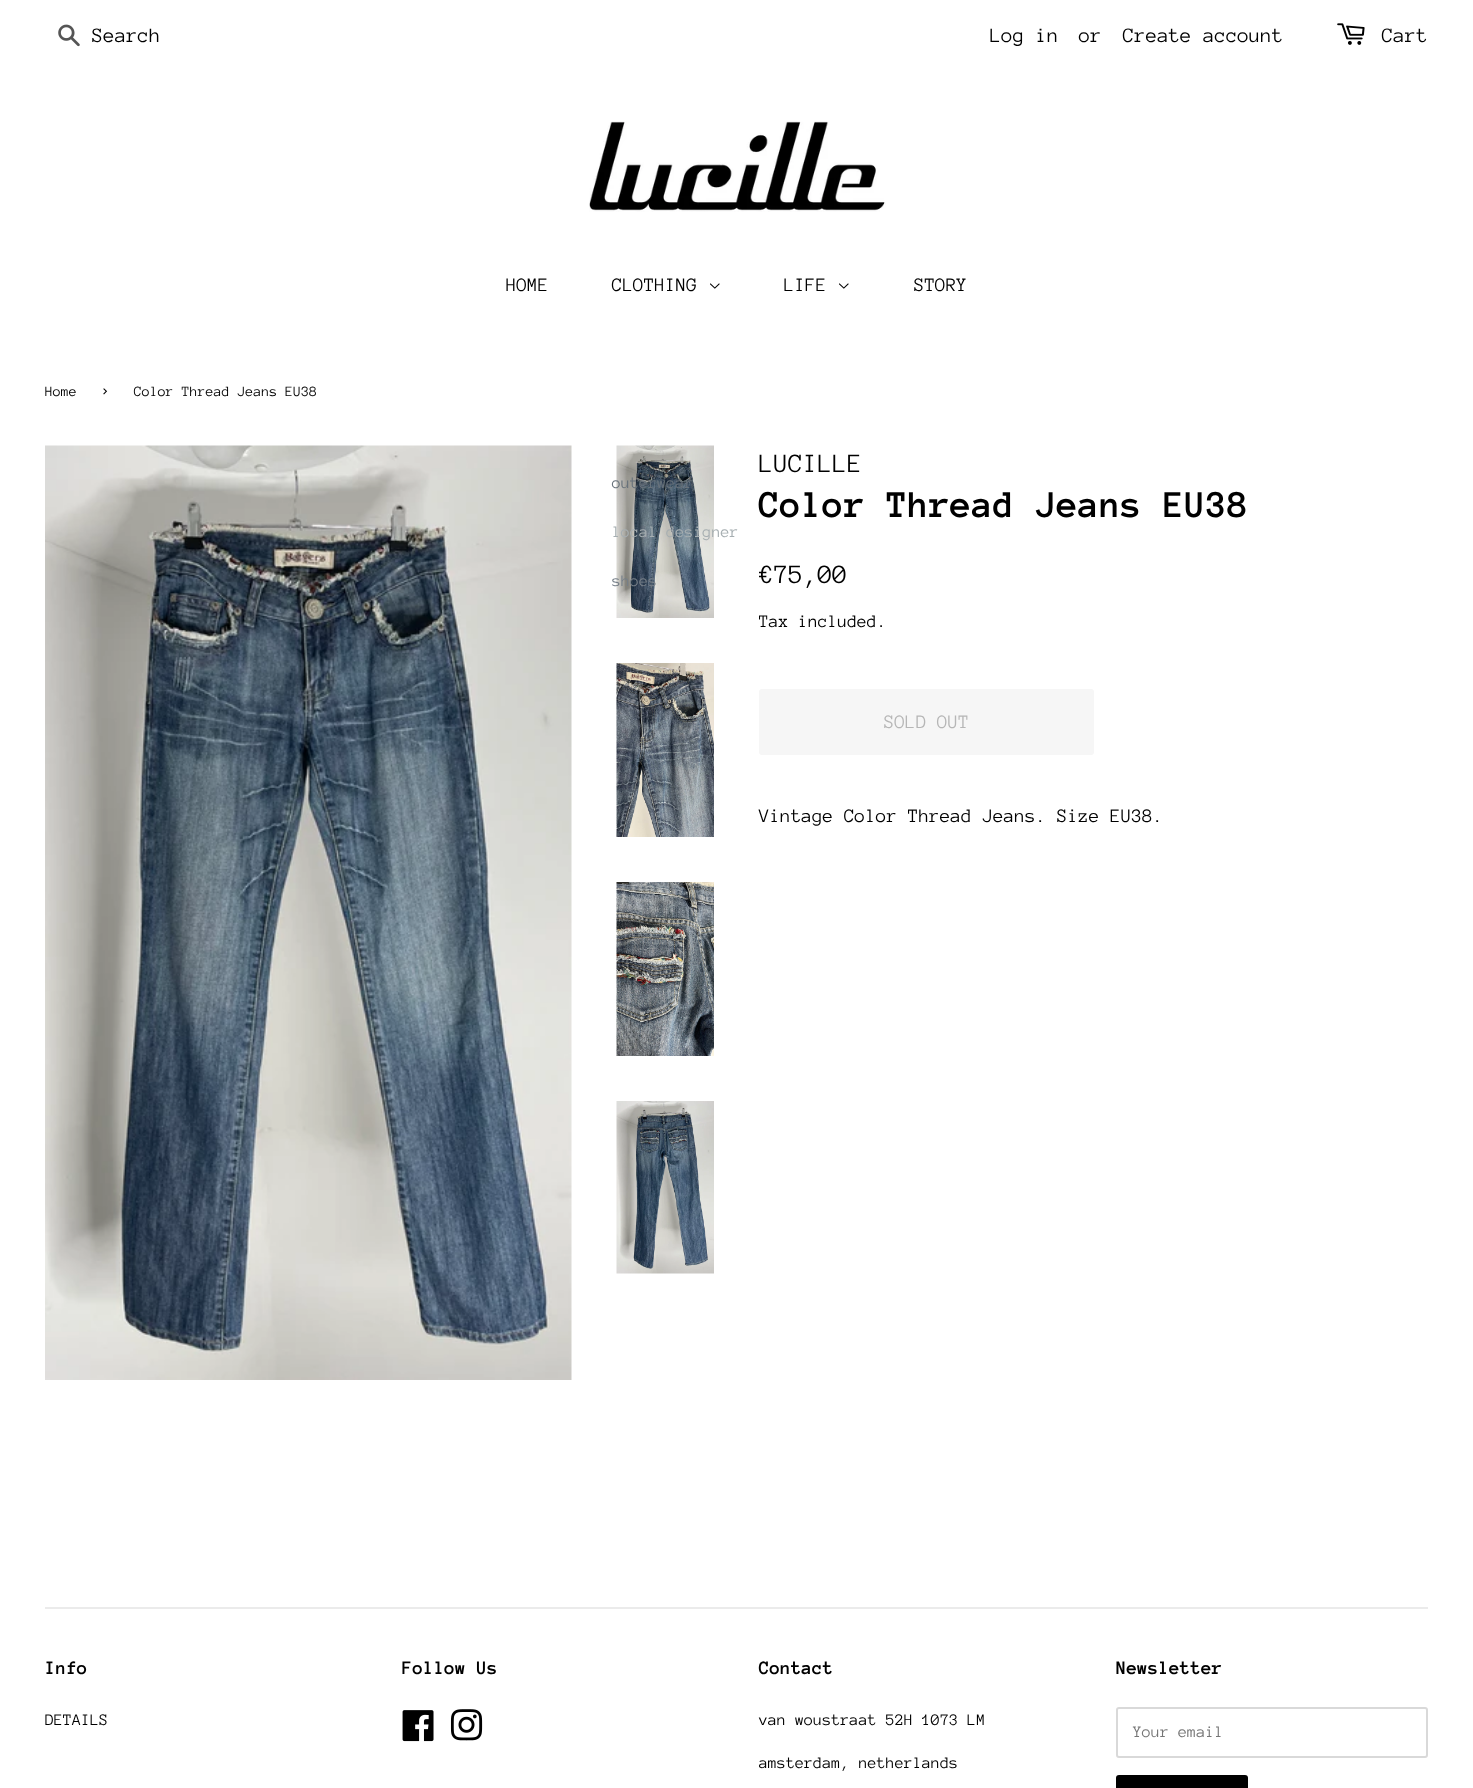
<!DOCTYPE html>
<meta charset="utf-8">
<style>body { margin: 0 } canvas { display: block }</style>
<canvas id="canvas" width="1473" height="1788"></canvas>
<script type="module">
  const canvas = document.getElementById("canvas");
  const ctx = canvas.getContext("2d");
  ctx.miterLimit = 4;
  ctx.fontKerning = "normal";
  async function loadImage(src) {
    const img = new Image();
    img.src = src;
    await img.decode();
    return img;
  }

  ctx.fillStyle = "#ffffff";
  ctx.fillRect(0, 0, 1473, 1788);
  ctx.drawImage(await loadImage("img1.png"), 58, 24, 22, 23);
  ctx.save();
  ctx.beginPath();
  ctx.rect(92, 26, 186, 21);
  ctx.clip();
  ctx.font = "21px Anonymous Pro";
  ctx.fillStyle = "#000000";
  ctx.fillText("Search", 92, 42);
  ctx.restore();
  ctx.font = "21px Anonymous Pro";
  ctx.fillStyle = "#000000";
  ctx.fillText("Log in", 990, 42);
  ctx.fillText("or", 1079, 42);
  ctx.fillText("Create account", 1123, 42);
  ctx.drawImage(await loadImage("img2.png"), 1337, 23, 28, 22);
  ctx.fillText("Cart", 1382, 42);
  ctx.drawImage(await loadImage("img3.png"), 589, 121, 297, 91);
  ctx.font = "19.5px Anonymous Pro";
  ctx.fillText("HOME", 506, 291);
  ctx.fillText("CLOTHING", 612, 291);
  ctx.drawImage(await loadImage("img4.png"), 710, 283, 10, 6);
  ctx.drawImage(await loadImage("img6.png"), 616, 445, 98, 173);
  ctx.font = "16.6px Anonymous Pro";
  ctx.fillStyle = "#68727b";
  ctx.fillText("outerwear", 612, 488);
  ctx.fillStyle = "#a6aeb1";
  ctx.fillText("local designer", 612, 537);
  ctx.fillStyle = "#767f88";
  ctx.fillText("shoes", 612, 586);
  ctx.font = "19.5px Anonymous Pro";
  ctx.fillStyle = "#000000";
  ctx.fillText("LIFE", 784, 291);
  ctx.drawImage(await loadImage("img4.png"), 839, 283, 10, 6);
  ctx.fillText("STORY", 914, 291);
  ctx.font = "14.6px Anonymous Pro";
  ctx.fillText("Home", 45, 396);
  ctx.font = "20px Anonymous Pro";
  ctx.fillText("›", 100, 396);
  ctx.font = "14.6px Anonymous Pro";
  ctx.fillText("Color Thread Jeans EU38", 134, 396);
  ctx.drawImage(await loadImage("img5.png"), 45, 445, 527, 935);
  ctx.drawImage(await loadImage("img7.png"), 616, 663, 98, 174);
  ctx.drawImage(await loadImage("img8.png"), 616, 882, 98, 174);
  ctx.drawImage(await loadImage("img9.png"), 616, 1101, 98, 173);
  ctx.font = "27px Anonymous Pro";
  ctx.fillText("LUCILLE", 759, 472);
  ctx.font = "bold 39px Anonymous Pro";
  ctx.fillText("Color Thread Jeans EU38", 759, 517);
  ctx.font = "27px Anonymous Pro";
  ctx.fillText("€75,00", 759, 583);
  ctx.font = "18px Anonymous Pro";
  ctx.fillText("Tax included.", 759, 627);
  ctx.fillStyle = "#f6f6f6";
  ctx.beginPath();
  ctx.roundRect(759, 689, 335, 66, 3);
  ctx.fill();
  ctx.font = "19.5px Anonymous Pro";
  ctx.fillStyle = "#b6b6b6";
  ctx.fillText("SOLD OUT", 884, 728);
  ctx.fillStyle = "#000000";
  ctx.fillText("Vintage Color Thread Jeans. Size EU38.", 759, 822);
  ctx.fillStyle = "#ebebeb";
  ctx.fillRect(45, 1607, 1383, 2);
  ctx.font = "bold 19.5px Anonymous Pro";
  ctx.fillStyle = "#000000";
  ctx.fillText("Info", 45, 1674);
  ctx.font = "16.6px Anonymous Pro";
  ctx.fillText("DETAILS", 45, 1725);
  ctx.font = "bold 19.5px Anonymous Pro";
  ctx.fillText("Follow Us", 402, 1674);
  ctx.drawImage(await loadImage("img10.png"), 402, 1710, 32, 32);
  ctx.drawImage(await loadImage("img11.png"), 450, 1709, 33, 32);
  ctx.fillText("Contact", 759, 1674);
  ctx.font = "16.6px Anonymous Pro";
  ctx.fillText("van woustraat 52H 1073 LM", 759, 1725);
  ctx.fillText("amsterdam, netherlands", 759, 1768);
  ctx.font = "bold 19.5px Anonymous Pro";
  ctx.fillText("Newsletter", 1116, 1674);
  ctx.beginPath();
  ctx.roundRect(1117, 1708, 310, 49, 2);
  ctx.strokeStyle = "#d9d9d9";
  ctx.lineWidth = 2;
  ctx.stroke();
  ctx.font = "16.6px Anonymous Pro";
  ctx.fillStyle = "#757575";
  ctx.fillText("Your email", 1133, 1737);
  ctx.fillStyle = "#000000";
  ctx.beginPath();
  ctx.roundRect(1116, 1775, 132, 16, 3);
  ctx.fill();
</script>
